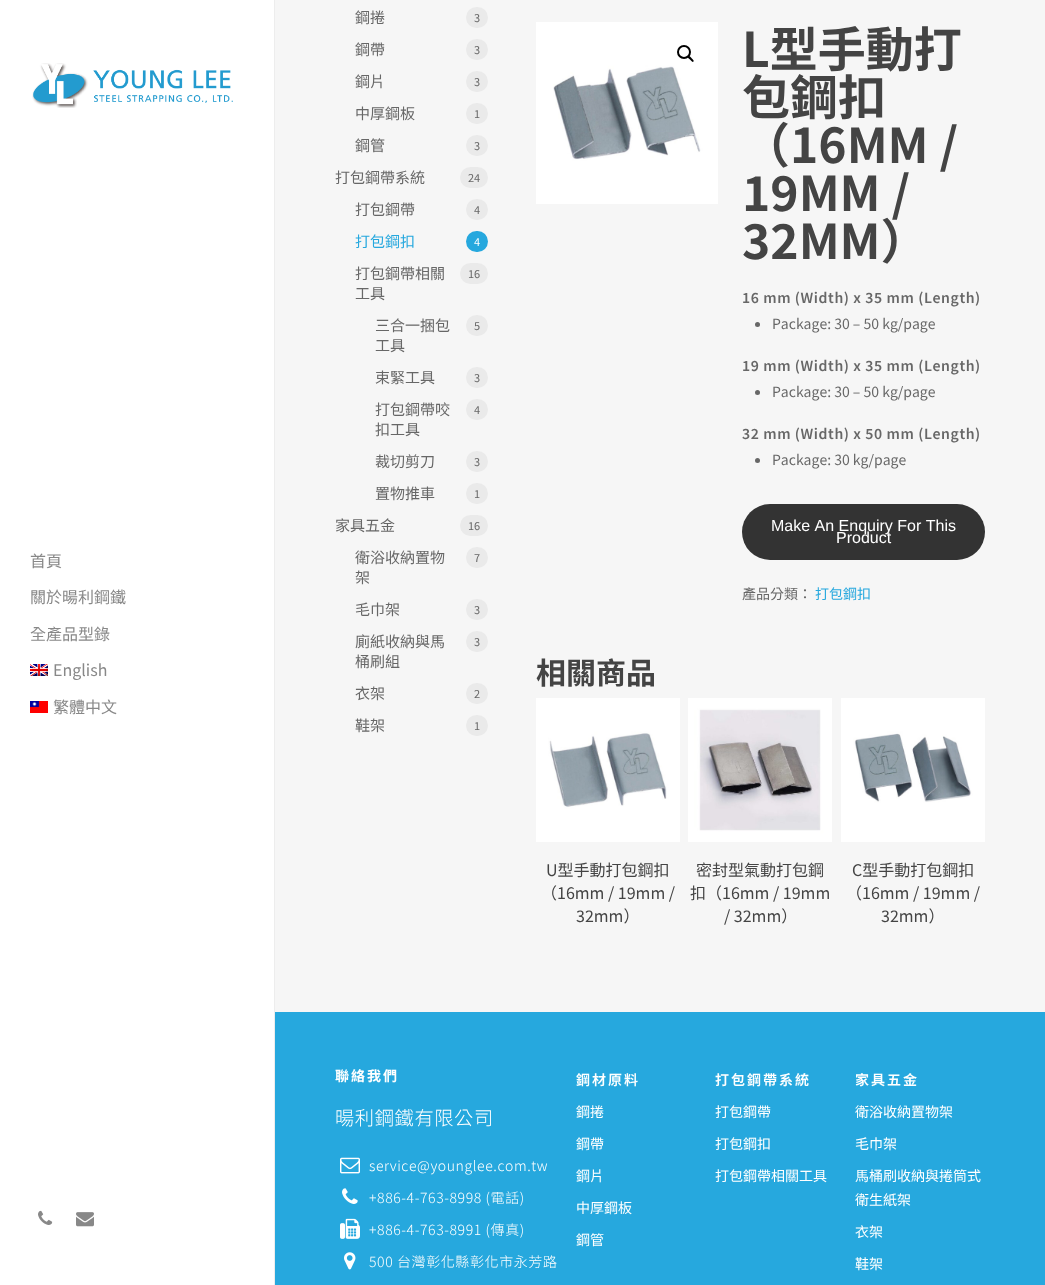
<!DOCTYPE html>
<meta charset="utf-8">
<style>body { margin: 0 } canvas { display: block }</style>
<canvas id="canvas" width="1045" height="1285"></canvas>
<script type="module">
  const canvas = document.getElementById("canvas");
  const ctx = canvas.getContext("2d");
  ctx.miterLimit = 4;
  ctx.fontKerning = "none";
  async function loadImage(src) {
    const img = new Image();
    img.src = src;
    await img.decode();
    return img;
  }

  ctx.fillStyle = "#26a8de";
  ctx.fillRect(0, 0, 1045, 1285);
  ctx.fillStyle = "#ffffff";
  ctx.fillRect(0, 0, 274, 1285);
  ctx.fillStyle = "#ededed";
  ctx.fillRect(274, 0, 1, 1285);
  ctx.drawImage(await loadImage("img1.png"), 32, 63, 201, 45);
  ctx.font = "16px Noto Sans TC";
  ctx.fillStyle = "#888888";
  ctx.fillText("首頁", 30, 567);
  ctx.fillText("關於暘利鋼鐵", 30, 603);
  ctx.fillText("全產品型錄", 30, 640);
  ctx.drawImage(await loadImage("img2.png"), 30, 664, 18, 12);
  ctx.fillText("English", 53, 676);
  ctx.drawImage(await loadImage("img3.png"), 30, 701, 18, 12);
  ctx.fillText("繁體中文", 53, 713);
  ctx.drawImage(await loadImage("img4.png"), 38, 1210, 15, 15);
  ctx.drawImage(await loadImage("img5.png"), 76, 1212, 18, 15);
  ctx.fillStyle = "#f6f6f6";
  ctx.fillRect(275, 0, 770, 1012);
  ctx.font = "15px Noto Sans TC";
  ctx.fillStyle = "#676767";
  ctx.fillText("鋼捲", 355, 23);
  ctx.fillStyle = "#eaeaea";
  ctx.beginPath();
  ctx.roundRect(466, 7, 22, 21, 10.5);
  ctx.fill();
  ctx.font = "11px Noto Sans TC";
  ctx.fillStyle = "#676767";
  ctx.fillText("3", 474, 22);
  ctx.font = "15px Noto Sans TC";
  ctx.fillText("鋼帶", 355, 55);
  ctx.fillStyle = "#eaeaea";
  ctx.beginPath();
  ctx.roundRect(466, 39, 22, 21, 10.5);
  ctx.fill();
  ctx.font = "11px Noto Sans TC";
  ctx.fillStyle = "#676767";
  ctx.fillText("3", 474, 54);
  ctx.font = "15px Noto Sans TC";
  ctx.fillText("鋼片", 355, 87);
  ctx.fillStyle = "#eaeaea";
  ctx.beginPath();
  ctx.roundRect(466, 71, 22, 21, 10.5);
  ctx.fill();
  ctx.font = "11px Noto Sans TC";
  ctx.fillStyle = "#676767";
  ctx.fillText("3", 474, 86);
  ctx.font = "15px Noto Sans TC";
  ctx.fillText("中厚鋼板", 355, 119);
  ctx.fillStyle = "#eaeaea";
  ctx.beginPath();
  ctx.roundRect(466, 103, 22, 21, 10.5);
  ctx.fill();
  ctx.font = "11px Noto Sans TC";
  ctx.fillStyle = "#676767";
  ctx.fillText("1", 474, 118);
  ctx.font = "15px Noto Sans TC";
  ctx.fillText("鋼管", 355, 151);
  ctx.fillStyle = "#eaeaea";
  ctx.beginPath();
  ctx.roundRect(466, 135, 22, 21, 10.5);
  ctx.fill();
  ctx.font = "11px Noto Sans TC";
  ctx.fillStyle = "#676767";
  ctx.fillText("3", 474, 150);
  ctx.font = "15px Noto Sans TC";
  ctx.fillText("打包鋼帶系統", 335, 183);
  ctx.fillStyle = "#eaeaea";
  ctx.beginPath();
  ctx.roundRect(460, 167, 28, 21, 10.5);
  ctx.fill();
  ctx.font = "11px Noto Sans TC";
  ctx.fillStyle = "#676767";
  ctx.fillText("24", 468, 182);
  ctx.font = "15px Noto Sans TC";
  ctx.fillText("打包鋼帶", 355, 215);
  ctx.fillStyle = "#eaeaea";
  ctx.beginPath();
  ctx.roundRect(466, 199, 22, 21, 10.5);
  ctx.fill();
  ctx.font = "11px Noto Sans TC";
  ctx.fillStyle = "#676767";
  ctx.fillText("4", 474, 214);
  ctx.font = "15px Noto Sans TC";
  ctx.fillStyle = "#26a8de";
  ctx.fillText("打包鋼扣", 355, 247);
  ctx.beginPath();
  ctx.roundRect(466, 231, 22, 21, 10.5);
  ctx.fill();
  ctx.font = "11px Noto Sans TC";
  ctx.fillStyle = "#ffffff";
  ctx.fillText("4", 474, 246);
  ctx.font = "15px Noto Sans TC";
  ctx.fillStyle = "#676767";
  ctx.fillText("打包鋼帶相關", 355, 279);
  ctx.fillText("工具", 355, 299);
  ctx.fillStyle = "#eaeaea";
  ctx.beginPath();
  ctx.roundRect(460, 263, 28, 21, 10.5);
  ctx.fill();
  ctx.font = "11px Noto Sans TC";
  ctx.fillStyle = "#676767";
  ctx.fillText("16", 468, 278);
  ctx.font = "15px Noto Sans TC";
  ctx.fillText("三合一捆包", 375, 331);
  ctx.fillText("工具", 375, 351);
  ctx.fillStyle = "#eaeaea";
  ctx.beginPath();
  ctx.roundRect(466, 315, 22, 21, 10.5);
  ctx.fill();
  ctx.font = "11px Noto Sans TC";
  ctx.fillStyle = "#676767";
  ctx.fillText("5", 474, 330);
  ctx.font = "15px Noto Sans TC";
  ctx.fillText("束緊工具", 375, 383);
  ctx.fillStyle = "#eaeaea";
  ctx.beginPath();
  ctx.roundRect(466, 367, 22, 21, 10.5);
  ctx.fill();
  ctx.font = "11px Noto Sans TC";
  ctx.fillStyle = "#676767";
  ctx.fillText("3", 474, 382);
  ctx.font = "15px Noto Sans TC";
  ctx.fillText("打包鋼帶咬", 375, 415);
  ctx.fillText("扣工具", 375, 435);
  ctx.fillStyle = "#eaeaea";
  ctx.beginPath();
  ctx.roundRect(466, 399, 22, 21, 10.5);
  ctx.fill();
  ctx.font = "11px Noto Sans TC";
  ctx.fillStyle = "#676767";
  ctx.fillText("4", 474, 414);
  ctx.font = "15px Noto Sans TC";
  ctx.fillText("裁切剪刀", 375, 467);
  ctx.fillStyle = "#eaeaea";
  ctx.beginPath();
  ctx.roundRect(466, 451, 22, 21, 10.5);
  ctx.fill();
  ctx.font = "11px Noto Sans TC";
  ctx.fillStyle = "#676767";
  ctx.fillText("3", 474, 466);
  ctx.font = "15px Noto Sans TC";
  ctx.fillText("置物推車", 375, 499);
  ctx.fillStyle = "#eaeaea";
  ctx.beginPath();
  ctx.roundRect(466, 483, 22, 21, 10.5);
  ctx.fill();
  ctx.font = "11px Noto Sans TC";
  ctx.fillStyle = "#676767";
  ctx.fillText("1", 474, 498);
  ctx.font = "15px Noto Sans TC";
  ctx.fillText("家具五金", 335, 531);
  ctx.fillStyle = "#eaeaea";
  ctx.beginPath();
  ctx.roundRect(460, 515, 28, 21, 10.5);
  ctx.fill();
  ctx.font = "11px Noto Sans TC";
  ctx.fillStyle = "#676767";
  ctx.fillText("16", 468, 530);
  ctx.font = "15px Noto Sans TC";
  ctx.fillText("衛浴收納置物", 355, 563);
  ctx.fillText("架", 355, 583);
  ctx.fillStyle = "#eaeaea";
  ctx.beginPath();
  ctx.roundRect(466, 547, 22, 21, 10.5);
  ctx.fill();
  ctx.font = "11px Noto Sans TC";
  ctx.fillStyle = "#676767";
  ctx.fillText("7", 474, 562);
  ctx.font = "15px Noto Sans TC";
  ctx.fillText("毛巾架", 355, 615);
  ctx.fillStyle = "#eaeaea";
  ctx.beginPath();
  ctx.roundRect(466, 599, 22, 21, 10.5);
  ctx.fill();
  ctx.font = "11px Noto Sans TC";
  ctx.fillStyle = "#676767";
  ctx.fillText("3", 474, 614);
  ctx.font = "15px Noto Sans TC";
  ctx.fillText("廁紙收納與馬", 355, 647);
  ctx.fillText("桶刷組", 355, 667);
  ctx.fillStyle = "#eaeaea";
  ctx.beginPath();
  ctx.roundRect(466, 631, 22, 21, 10.5);
  ctx.fill();
  ctx.font = "11px Noto Sans TC";
  ctx.fillStyle = "#676767";
  ctx.fillText("3", 474, 646);
  ctx.font = "15px Noto Sans TC";
  ctx.fillText("衣架", 355, 699);
  ctx.fillStyle = "#eaeaea";
  ctx.beginPath();
  ctx.roundRect(466, 683, 22, 21, 10.5);
  ctx.fill();
  ctx.font = "11px Noto Sans TC";
  ctx.fillStyle = "#676767";
  ctx.fillText("2", 474, 698);
  ctx.font = "15px Noto Sans TC";
  ctx.fillText("鞋架", 355, 731);
  ctx.fillStyle = "#eaeaea";
  ctx.beginPath();
  ctx.roundRect(466, 715, 22, 21, 10.5);
  ctx.fill();
  ctx.font = "11px Noto Sans TC";
  ctx.fillStyle = "#676767";
  ctx.fillText("1", 474, 730);
  ctx.drawImage(await loadImage("img6.png"), 536, 22, 182, 182);
  ctx.beginPath();
  ctx.arc(684, 52, 6, 0, Math.PI * 2);
  ctx.strokeStyle = "#000000";
  ctx.lineWidth = 2;
  ctx.stroke();
  ctx.fillStyle = "#000000";
  ctx.beginPath();
  ctx.moveTo(688, 56);
  ctx.bezierCurveTo(689, 55, 691, 57.5, 691.5, 58);
  ctx.bezierCurveTo(692, 59, 694.5, 60.5, 693.5, 61.5);
  ctx.bezierCurveTo(692.5, 63, 690.5, 60, 690, 59.5);
  ctx.bezierCurveTo(689.5, 59, 686.5, 57, 688, 56);
  ctx.closePath();
  ctx.fill();
  ctx.font = "bold 48px Noto Sans TC";
  ctx.fillStyle = "#444444";
  ctx.fillText("L型手動打", 742, 67);
  ctx.fillText("包鋼扣", 742, 115);
  ctx.fillText("（16MM /", 742, 163);
  ctx.fillText("19MM /", 742, 211);
  ctx.fillText("32MM）", 742, 259);
  ctx.letterSpacing = "0.6px";
  ctx.font = "600 14px Noto Sans TC";
  ctx.fillStyle = "#676767";
  ctx.fillText("16 mm (Width) x 35 mm (Length)", 742, 303);
  ctx.beginPath();
  ctx.arc(757.5, 324.5, 2.5, 0, Math.PI * 2);
  ctx.fill();
  ctx.letterSpacing = "0px";
  ctx.font = "14px Noto Sans TC";
  ctx.fillText("Package: 30 – 50 kg/page", 772, 329);
  ctx.letterSpacing = "0.6px";
  ctx.font = "600 14px Noto Sans TC";
  ctx.fillText("19 mm (Width) x 35 mm (Length)", 742, 371);
  ctx.beginPath();
  ctx.arc(757.5, 392.5, 2.5, 0, Math.PI * 2);
  ctx.fill();
  ctx.letterSpacing = "0px";
  ctx.font = "14px Noto Sans TC";
  ctx.fillText("Package: 30 – 50 kg/page", 772, 397);
  ctx.letterSpacing = "0.6px";
  ctx.font = "600 14px Noto Sans TC";
  ctx.fillText("32 mm (Width) x 50 mm (Length)", 742, 439);
  ctx.beginPath();
  ctx.arc(757.5, 460.5, 2.5, 0, Math.PI * 2);
  ctx.fill();
  ctx.letterSpacing = "0px";
  ctx.font = "14px Noto Sans TC";
  ctx.fillText("Package: 30 kg/page", 772, 465);
  ctx.fillStyle = "#333333";
  ctx.beginPath();
  ctx.roundRect(742, 504, 243, 56, 28);
  ctx.fill();
  ctx.font = "16px Liberation Sans";
  ctx.fillStyle = "#ffffff";
  ctx.fillText("Make An Enquiry For This", 771, 531);
  ctx.fillText("Product", 836, 543);
  ctx.font = "14px Noto Sans TC";
  ctx.fillStyle = "#676767";
  ctx.fillText("產品分類：", 742, 599);
  ctx.fillStyle = "#26a8de";
  ctx.fillText("打包鋼扣", 815, 599);
  ctx.font = "bold 30px Noto Sans TC";
  ctx.fillStyle = "#444444";
  ctx.fillText("相關商品", 536, 684);
  ctx.drawImage(await loadImage("img7.png"), 536, 698, 144, 144);
  ctx.font = "16px Noto Sans TC";
  ctx.fillText("U型手動打包鋼扣", 546, 876);
  ctx.fillText("（16mm / 19mm /", 541, 899);
  ctx.fillText("32mm）", 576, 922);
  ctx.drawImage(await loadImage("img8.png"), 688, 698, 144, 144);
  ctx.fillText("密封型氣動打包鋼", 696, 876);
  ctx.fillText("扣（16mm / 19mm", 690, 899);
  ctx.fillText("/ 32mm）", 724, 922);
  ctx.drawImage(await loadImage("img9.png"), 841, 698, 144, 144);
  ctx.fillText("C型手動打包鋼扣", 852, 876);
  ctx.fillText("（16mm / 19mm /", 846, 899);
  ctx.fillText("32mm）", 881, 922);
  ctx.letterSpacing = "2px";
  ctx.font = "bold 14px Noto Sans TC";
  ctx.fillStyle = "#ffffff";
  ctx.fillText("聯絡我們", 335, 1081);
  ctx.letterSpacing = "0.6px";
  ctx.font = "300 19.25px Noto Sans TC";
  ctx.fillText("暘利鋼鐵有限公司", 335, 1125);
  ctx.drawImage(await loadImage("img10.png"), 340, 1157, 20, 17);
  ctx.font = "300 14px Noto Sans TC";
  ctx.fillText("service@younglee.com.tw", 369, 1171);
  ctx.drawImage(await loadImage("img11.png"), 342, 1188, 16, 16);
  ctx.fillText("+886-4-763-8998 (電話)", 369, 1203);
  ctx.drawImage(await loadImage("img12.png"), 340, 1218, 20, 21);
  ctx.fillText("+886-4-763-8991 (傳真)", 369, 1235);
  ctx.drawImage(await loadImage("img13.png"), 344, 1252, 12, 18);
  ctx.fillText("500 台灣彰化縣彰化市永芳路", 369, 1267);
  ctx.letterSpacing = "2px";
  ctx.font = "600 14px Noto Sans TC";
  ctx.fillText("鋼材原料", 576, 1085);
  ctx.letterSpacing = "0px";
  ctx.font = "14px Noto Sans TC";
  ctx.fillText("鋼捲", 576, 1117);
  ctx.fillText("鋼帶", 576, 1149);
  ctx.fillText("鋼片", 576, 1181);
  ctx.fillText("中厚鋼板", 576, 1213);
  ctx.fillText("鋼管", 576, 1245);
  ctx.letterSpacing = "2px";
  ctx.font = "600 14px Noto Sans TC";
  ctx.fillText("打包鋼帶系統", 715, 1085);
  ctx.letterSpacing = "0px";
  ctx.font = "14px Noto Sans TC";
  ctx.fillText("打包鋼帶", 715, 1117);
  ctx.fillText("打包鋼扣", 715, 1149);
  ctx.fillText("打包鋼帶相關工具", 715, 1181);
  ctx.letterSpacing = "2px";
  ctx.font = "600 14px Noto Sans TC";
  ctx.fillText("家具五金", 855, 1085);
  ctx.letterSpacing = "0px";
  ctx.font = "14px Noto Sans TC";
  ctx.fillText("衛浴收納置物架", 855, 1117);
  ctx.fillText("毛巾架", 855, 1149);
  ctx.fillText("馬桶刷收納與捲筒式", 855, 1181);
  ctx.fillText("衛生紙架", 855, 1205);
  ctx.fillText("衣架", 855, 1237);
  ctx.fillText("鞋架", 855, 1269);
</script>
